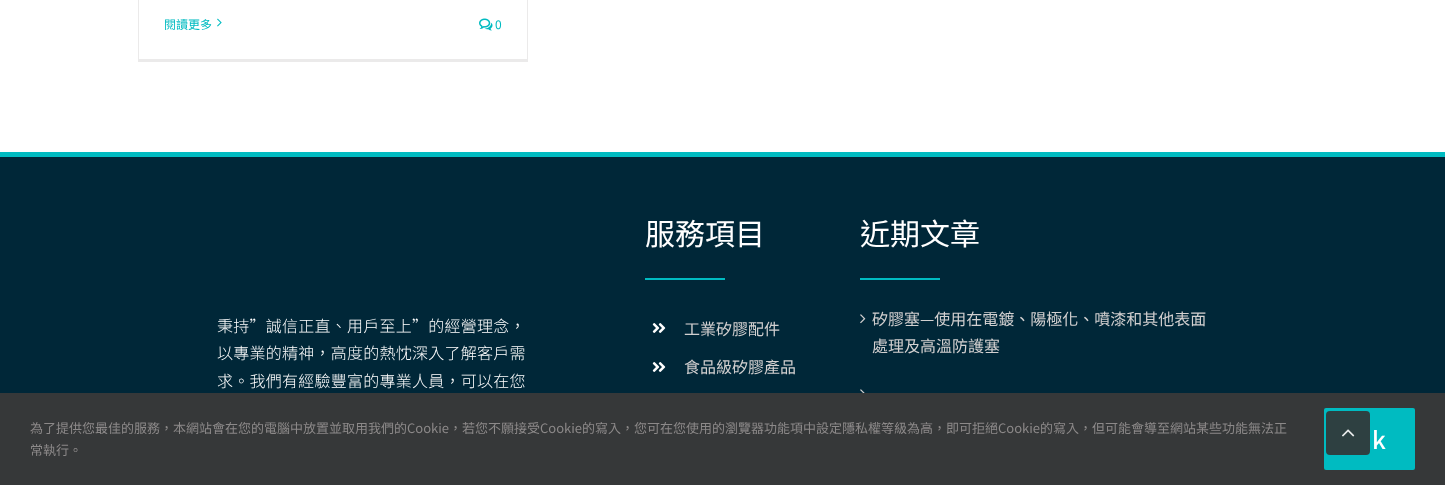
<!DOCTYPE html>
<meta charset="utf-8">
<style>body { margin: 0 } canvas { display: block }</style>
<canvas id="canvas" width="1445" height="485"></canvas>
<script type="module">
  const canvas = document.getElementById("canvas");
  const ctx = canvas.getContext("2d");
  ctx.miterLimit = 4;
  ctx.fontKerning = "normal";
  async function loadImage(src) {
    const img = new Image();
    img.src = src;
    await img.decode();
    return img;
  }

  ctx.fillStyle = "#ffffff";
  ctx.fillRect(0, 0, 1445, 485);
  ctx.fillStyle = "#ebeaea";
  ctx.fillRect(527, 0, 1, 62);
  ctx.fillRect(138, 59, 390, 3);
  ctx.fillRect(138, 0, 1, 62);
  ctx.font = "12px Noto Sans TC";
  ctx.fillStyle = "#00bbc1";
  ctx.fillText("閱讀更多", 164, 29);
  ctx.drawImage(await loadImage("img1.png"), 217, 18, 5, 9);
  ctx.drawImage(await loadImage("img2.png"), 479, 18, 14, 13);
  ctx.fillText("0", 495, 29);
  ctx.fillStyle = "#002738";
  ctx.fillRect(0, 157, 1445, 236);
  ctx.fillStyle = "#00bbc1";
  ctx.fillRect(0, 152, 1445, 5);
  ctx.letterSpacing = "0.25px";
  ctx.font = "300 16px Noto Sans TC";
  ctx.fillStyle = "#ffffff";
  ctx.fillText("秉持”誠信正直、用戶至上”的經營理念，", 217, 332);
  ctx.fillText("以專業的精神，高度的熱忱深入了解客戶需", 217, 359);
  ctx.fillText("求。我們有經驗豐富的專業人員，可以在您", 217, 387);
  ctx.letterSpacing = "0px";
  ctx.font = "30px Noto Sans TC";
  ctx.fillText("服務項目", 645, 245);
  ctx.fillStyle = "#00bbc1";
  ctx.fillRect(645, 278, 80, 2);
  ctx.drawImage(await loadImage("img3.png"), 652, 323, 14, 10);
  ctx.font = "16px Noto Sans TC";
  ctx.fillStyle = "#d2d0d0";
  ctx.fillText("工業矽膠配件", 684, 335);
  ctx.drawImage(await loadImage("img3.png"), 652, 362, 14, 10);
  ctx.fillText("食品級矽膠產品", 684, 373);
  ctx.font = "30px Noto Sans TC";
  ctx.fillStyle = "#ffffff";
  ctx.fillText("近期文章", 860, 245);
  ctx.fillStyle = "#00bbc1";
  ctx.fillRect(860, 278, 80, 2);
  ctx.drawImage(await loadImage("img4.png"), 860, 314, 6, 10);
  ctx.font = "16px Noto Sans TC";
  ctx.fillStyle = "#d2d0d0";
  ctx.fillText("矽膠塞—使用在電鍍、陽極化、噴漆和其他表面", 872, 325);
  ctx.fillText("處理及高溫防護塞", 872, 352);
  ctx.drawImage(await loadImage("img5.png"), 860, 389, 5, 4);
  ctx.fillStyle = "#363839";
  ctx.fillRect(0, 393, 1445, 92);
  ctx.fillStyle = "#00bbc1";
  ctx.beginPath();
  ctx.roundRect(1324, 408, 91, 62, 2);
  ctx.fill();
  ctx.fillStyle = "rgba(51, 51, 51, 0.9)";
  ctx.beginPath();
  ctx.roundRect(1326, 411, 44, 44, 4);
  ctx.fill();
  ctx.drawImage(await loadImage("img6.png"), 1342, 429, 13, 8);
  ctx.font = "13px Noto Sans TC";
  ctx.fillStyle = "#8c8989";
  ctx.fillText("為了提供您最佳的服務，本網站會在您的電腦中放置並取用我們的Cookie，若您不願接受Cookie的寫入，您可在您使用的瀏覽器功能項中設定隱私權等級為高，即可拒絕Cookie的寫入，但可能會導至網站某些功能無法正", 30, 433);
  ctx.fillText("常執行。", 30, 455);
  ctx.font = "500 24px Noto Sans TC";
  ctx.fillStyle = "#ffffff";
  ctx.fillText("k", 1372, 449);
</script>
